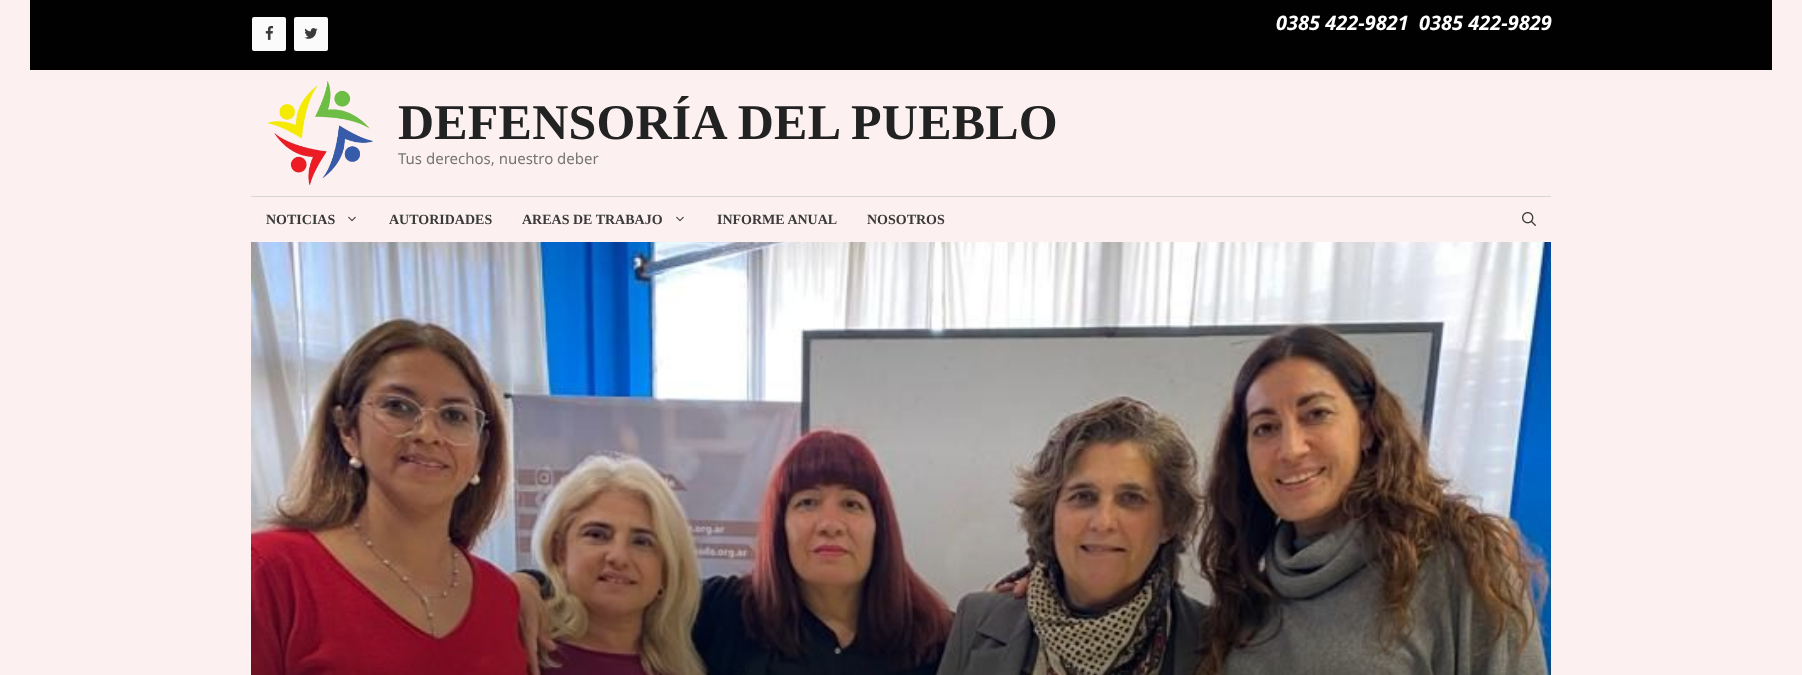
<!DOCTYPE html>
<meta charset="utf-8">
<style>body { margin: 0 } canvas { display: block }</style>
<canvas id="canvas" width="1802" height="675"></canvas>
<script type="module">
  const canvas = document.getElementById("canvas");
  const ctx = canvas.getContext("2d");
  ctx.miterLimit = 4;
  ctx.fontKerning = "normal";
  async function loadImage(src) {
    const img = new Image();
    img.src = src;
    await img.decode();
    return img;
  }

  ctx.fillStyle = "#fcf0f0";
  ctx.fillRect(0, 0, 1802, 675);
  ctx.fillStyle = "#010101";
  ctx.fillRect(30, 0, 1742, 70);
  ctx.fillStyle = "#fbfbfb";
  ctx.beginPath();
  ctx.roundRect(252, 17, 34, 34, 2);
  ctx.fill();
  ctx.drawImage(await loadImage("img1.png"), 265, 25, 9, 15);
  ctx.beginPath();
  ctx.roundRect(294, 17, 34, 34, 2);
  ctx.fill();
  ctx.drawImage(await loadImage("img2.png"), 304, 28, 14, 11);
  ctx.font = "italic bold 20px Noto Sans";
  ctx.fillStyle = "#ffffff";
  ctx.fillText("0385 422-9821", 1276, 30);
  ctx.fillText("0385 422-9829", 1419, 30);
  ctx.drawImage(await loadImage("img3.png"), 267, 81, 106, 105);
  ctx.letterSpacing = "0.2px";
  ctx.font = "bold 50px Liberation Serif";
  ctx.fillStyle = "#222222";
  ctx.fillText("DEFENSORÍA DEL PUEBLO", 398, 139);
  ctx.letterSpacing = "0px";
  ctx.font = "15px Noto Sans";
  ctx.fillStyle = "#757575";
  ctx.fillText("Tus derechos, nuestro deber", 398, 164);
  ctx.fillStyle = "#d4d7d8";
  ctx.fillRect(251, 196, 1300, 1);
  ctx.font = "bold 14px Liberation Serif";
  ctx.fillStyle = "#3a3a3a";
  ctx.fillText("NOTICIAS", 266, 224);
  ctx.drawImage(await loadImage("img4.png"), 348, 216, 8, 6);
  ctx.fillText("AUTORIDADES", 389, 224);
  ctx.fillText("AREAS DE TRABAJO", 522, 224);
  ctx.drawImage(await loadImage("img4.png"), 676, 216, 8, 6);
  ctx.fillText("INFORME ANUAL", 717, 224);
  ctx.fillText("NOSOTROS", 867, 224);
  ctx.drawImage(await loadImage("img5.png"), 1522, 212, 14, 14);
  ctx.drawImage(await loadImage("img6.png"), 251, 242, 1300, 433);
</script>
